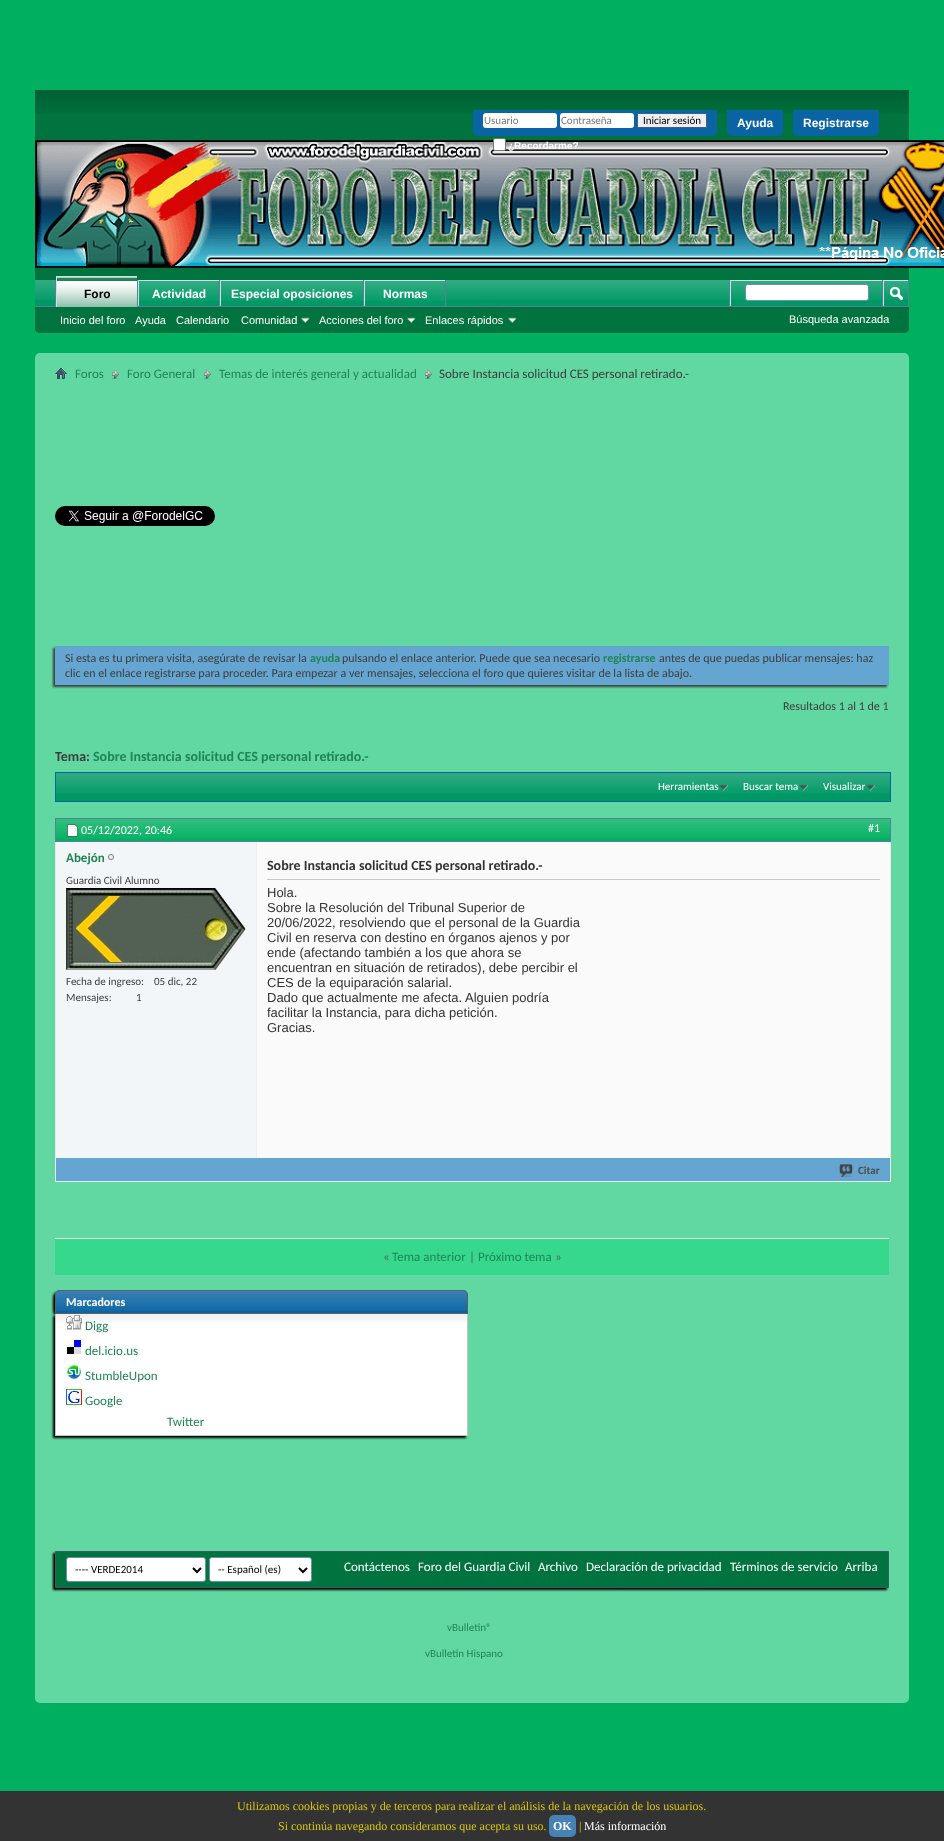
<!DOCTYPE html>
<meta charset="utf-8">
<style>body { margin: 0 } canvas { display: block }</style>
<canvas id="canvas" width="944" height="1841"></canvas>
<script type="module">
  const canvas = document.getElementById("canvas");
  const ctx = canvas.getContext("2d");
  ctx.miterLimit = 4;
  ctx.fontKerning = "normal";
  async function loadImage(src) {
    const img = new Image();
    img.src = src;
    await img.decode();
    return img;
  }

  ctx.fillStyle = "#00b060";
  ctx.fillRect(0, 0, 944, 1841);
  ctx.fillStyle = "#00733e";
  ctx.beginPath();
  ctx.roundRect(35, 90, 874, 243, [0, 0, 5, 5]);
  ctx.fill();
  ctx.drawImage(await loadImage("img1.png"), 35, 90, 874, 24);
  ctx.fillStyle = "#0a64a4";
  ctx.beginPath();
  ctx.roundRect(473, 110, 244, 26, [0, 0, 5, 5]);
  ctx.fill();
  ctx.fillStyle = "#ffffff";
  ctx.beginPath();
  ctx.roundRect(483, 113, 74, 15, 3);
  ctx.fill();
  ctx.font = "11px Carlito";
  ctx.fillStyle = "#777777";
  ctx.fillText("Usuario", 484, 124);
  ctx.fillStyle = "#ffffff";
  ctx.beginPath();
  ctx.roundRect(560, 113, 74, 15, 3);
  ctx.fill();
  ctx.fillStyle = "#777777";
  ctx.fillText("Contraseña", 561, 124);
  ctx.fillStyle = "#efefef";
  ctx.beginPath();
  ctx.rect(637.5, 113.5, 69, 14);
  ctx.fill();
  ctx.strokeStyle = "#415d8d";
  ctx.stroke();
  ctx.fillStyle = "#000000";
  ctx.fillText("Iniciar sesión", 643, 124);
  ctx.drawImage(await loadImage("img2.png"), 35, 140, 909, 128);
  ctx.fillStyle = "#ffffff";
  ctx.beginPath();
  ctx.roundRect(493.5, 138.5, 12, 12, 1.5);
  ctx.fill();
  ctx.strokeStyle = "#767676";
  ctx.stroke();
  ctx.font = "bold 10px Liberation Sans";
  ctx.fillText("¿Recordarme?", 508, 149);
  ctx.fillStyle = "#0a64a4";
  ctx.beginPath();
  ctx.roundRect(727, 110, 56, 26, [0, 0, 5, 5]);
  ctx.fill();
  ctx.font = "bold 12px Liberation Sans";
  ctx.fillStyle = "#ffffff";
  ctx.fillText("Ayuda", 737, 127);
  ctx.fillStyle = "#0a64a4";
  ctx.beginPath();
  ctx.roundRect(793, 110, 86, 26, [0, 0, 5, 5]);
  ctx.fill();
  ctx.fillStyle = "#ffffff";
  ctx.fillText("Registrarse", 803, 127);
  ctx.fillStyle = "#00733e";
  ctx.beginPath();
  ctx.roundRect(35, 280, 874, 53, [0, 0, 5, 5]);
  ctx.fill();
  ctx.fillStyle = "#009966";
  ctx.fillRect(35, 280, 873, 26);
  ctx.drawImage(await loadImage("img3.png"), 35, 280, 873, 20);
  ctx.fillStyle = "#5a7f97";
  ctx.fillRect(137, 280, 1, 26);
  ctx.fillRect(55, 280, 1, 26);
  ctx.fillRect(219, 280, 1, 27);
  ctx.fillStyle = "#cedfeb";
  ctx.fillRect(138, 280, 81, 1);
  ctx.fillRect(138, 280, 1, 27);
  ctx.fillStyle = "#5a7f97";
  ctx.fillRect(363, 280, 1, 27);
  ctx.fillStyle = "#cedfeb";
  ctx.fillRect(220, 280, 143, 1);
  ctx.fillRect(220, 280, 1, 27);
  ctx.fillStyle = "#5a7f97";
  ctx.fillRect(445, 280, 1, 27);
  ctx.fillStyle = "#cedfeb";
  ctx.fillRect(364, 280, 81, 1);
  ctx.fillRect(364, 280, 1, 27);
  ctx.fillStyle = "#5a7f97";
  ctx.fillRect(35, 306, 874, 1);
  ctx.fillStyle = "#218457";
  ctx.fillRect(57, 277, 80, 30);
  ctx.drawImage(await loadImage("img4.png"), 57, 277, 80, 30);
  ctx.fillStyle = "#cedfeb";
  ctx.fillRect(56, 276, 81, 1);
  ctx.fillRect(56, 276, 1, 31);
  ctx.fillStyle = "#000000";
  ctx.fillText("Foro", 84, 298);
  ctx.fillStyle = "#009966";
  ctx.fillRect(139, 281, 80, 19);
  ctx.drawImage(await loadImage("img5.png"), 139, 281, 80, 20);
  ctx.fillStyle = "#ffffff";
  ctx.fillText("Actividad", 152, 298);
  ctx.fillStyle = "#009966";
  ctx.fillRect(221, 281, 142, 19);
  ctx.drawImage(await loadImage("img6.png"), 221, 281, 142, 20);
  ctx.fillStyle = "#ffffff";
  ctx.fillText("Especial oposiciones", 231, 298);
  ctx.fillStyle = "#009966";
  ctx.fillRect(365, 281, 80, 19);
  ctx.drawImage(await loadImage("img5.png"), 365, 281, 80, 20);
  ctx.fillStyle = "#ffffff";
  ctx.fillText("Normas", 383, 298);
  ctx.font = "11px Liberation Sans";
  ctx.fillText("Inicio del foro", 60, 324);
  ctx.fillText("Ayuda", 135, 324);
  ctx.fillText("Calendario", 176, 324);
  ctx.fillText("Comunidad", 241, 324);
  ctx.drawImage(await loadImage("img7.png"), 301, 317, 9, 6);
  ctx.fillText("Acciones del foro", 319, 324);
  ctx.drawImage(await loadImage("img7.png"), 407, 317, 9, 6);
  ctx.fillText("Enlaces rápidos", 425, 324);
  ctx.drawImage(await loadImage("img7.png"), 508, 317, 9, 6);
  ctx.fillStyle = "#5a7f97";
  ctx.fillRect(729, 280, 1, 26);
  ctx.fillStyle = "#cedfeb";
  ctx.fillRect(730, 280, 152, 1);
  ctx.fillRect(730, 280, 1, 26);
  ctx.fillStyle = "#ffffff";
  ctx.beginPath();
  ctx.roundRect(745.5, 284.5, 123, 16, 2.5);
  ctx.fill();
  ctx.strokeStyle = "#6b91ab";
  ctx.stroke();
  ctx.fillStyle = "#5a7f97";
  ctx.fillRect(908, 280, 1, 26);
  ctx.fillRect(882, 280, 1, 26);
  ctx.fillStyle = "#cedfeb";
  ctx.fillRect(883, 280, 25, 1);
  ctx.fillRect(883, 280, 1, 26);
  ctx.drawImage(await loadImage("img8.png"), 890, 287, 13, 14);
  ctx.fillStyle = "#ffffff";
  ctx.fillText("Búsqueda avanzada", 789, 323);
  ctx.fillStyle = "#333333";
  ctx.fillRect(0, 1791, 944, 50);
  ctx.font = "12px Liberation Serif";
  ctx.fillStyle = "#d7c712";
  ctx.fillText("Utilizamos cookies propias y de terceros para realizar el análisis de la navegación de los usuarios.", 237, 1810);
  ctx.fillText("Si continúa navegando consideramos que acepta su uso.", 278, 1830);
  ctx.fillStyle = "#4682b4";
  ctx.beginPath();
  ctx.roundRect(549, 1815, 27, 22, 5);
  ctx.fill();
  ctx.font = "bold 12px Liberation Serif";
  ctx.fillStyle = "#ffffff";
  ctx.fillText("OK", 553, 1830);
  ctx.font = "12px Liberation Serif";
  ctx.fillStyle = "#d7c712";
  ctx.fillText("|", 579, 1830);
  ctx.fillStyle = "#ffffff";
  ctx.fillText("Más información", 584, 1830);
  ctx.fillStyle = "#61d8a2";
  ctx.beginPath();
  ctx.roundRect(35, 353, 874, 1350, 5);
  ctx.fill();
  ctx.drawImage(await loadImage("img9.png"), 55, 367, 12, 12);
  ctx.drawImage(await loadImage("img10.png"), 112, 369, 7, 10);
  ctx.font = "13px Carlito";
  ctx.fillStyle = "#218457";
  ctx.fillText("Foros", 75, 378);
  ctx.drawImage(await loadImage("img10.png"), 204, 369, 7, 10);
  ctx.fillText("Foro General", 127, 378);
  ctx.drawImage(await loadImage("img10.png"), 425, 369, 7, 10);
  ctx.fillText("Temas de interés general y actualidad", 219, 378);
  ctx.fillStyle = "#3e3e3e";
  ctx.fillText("Sobre Instancia solicitud CES personal retirado.-", 439, 378);
  ctx.drawImage(await loadImage("img11.png"), 55, 506, 160, 20);
  ctx.filter = "blur(1px)";
  ctx.beginPath();
  ctx.rect(53, 648, 834, 39);
  ctx.fill();
  ctx.filter = "none";
  ctx.fillStyle = "#65a5d1";
  ctx.fillRect(55, 646, 834, 39);
  ctx.font = "12px Carlito";
  ctx.fillStyle = "#3e3e3e";
  ctx.fillText("Si esta es tu primera visita, asegúrate de revisar la", 65, 662);
  ctx.font = "bold 12px Carlito";
  ctx.fillStyle = "#218457";
  ctx.fillText("ayuda", 310, 662);
  ctx.font = "12px Carlito";
  ctx.fillStyle = "#3e3e3e";
  ctx.fillText("pulsando el enlace anterior. Puede que sea necesario", 342, 662);
  ctx.font = "bold 12px Carlito";
  ctx.fillStyle = "#218457";
  ctx.fillText("registrarse", 603, 662);
  ctx.font = "12px Carlito";
  ctx.fillStyle = "#3e3e3e";
  ctx.fillText("antes de que puedas publicar mensajes: haz", 659, 662);
  ctx.fillText("clic en el enlace registrarse para proceder. Para empezar a ver mensajes, selecciona el foro que quieres visitar de la lista de abajo.", 65, 677);
  ctx.fillText("Resultados 1 al 1 de 1", 783, 710);
  ctx.font = "bold 14px Carlito";
  ctx.fillText("Tema:", 55, 761);
  ctx.fillStyle = "#218457";
  ctx.fillText("Sobre Instancia solicitud CES personal retirado.-", 93, 761);
  ctx.fillStyle = "#009966";
  ctx.fillRect(56, 773, 834, 28);
  ctx.drawImage(await loadImage("img12.png"), 56, 773, 834, 20);
  ctx.strokeStyle = "#0a64a4";
  ctx.strokeRect(55.5, 772.5, 835, 29);
  ctx.drawImage(await loadImage("img13.png"), 719, 784, 9, 7);
  ctx.font = "11px Carlito";
  ctx.fillStyle = "#ffffff";
  ctx.fillText("Herramientas", 658, 790);
  ctx.drawImage(await loadImage("img13.png"), 799, 784, 9, 7);
  ctx.fillText("Buscar tema", 743, 790);
  ctx.drawImage(await loadImage("img13.png"), 866, 784, 9, 7);
  ctx.fillText("Visualizar", 823, 790);
  ctx.strokeStyle = "#e9e9e9";
  ctx.strokeRect(55.5, 818.5, 835, 363);
  ctx.fillStyle = "#00b060";
  ctx.fillRect(56, 819, 834, 22);
  ctx.drawImage(await loadImage("img14.png"), 56, 819, 834, 20);
  ctx.strokeStyle = "#5a7f97";
  ctx.strokeRect(55.5, 818.5, 835, 23);
  ctx.drawImage(await loadImage("img15.png"), 67, 824, 11, 13);
  ctx.font = "12px Carlito";
  ctx.fillStyle = "#ffffff";
  ctx.fillText("05/12/2022, 20:46", 81, 834);
  ctx.fillText("#1", 868, 832);
  ctx.fillStyle = "#f2f6f8";
  ctx.fillRect(56, 842, 200, 316);
  ctx.font = "bold 13px Carlito";
  ctx.fillStyle = "#218457";
  ctx.fillText("Abejón", 66, 862);
  ctx.drawImage(await loadImage("img16.png"), 108, 854, 6, 6);
  ctx.font = "11px Carlito";
  ctx.fillStyle = "#3e3e3e";
  ctx.fillText("Guardia Civil Alumno", 66, 884);
  ctx.drawImage(await loadImage("img17.png"), 66, 888, 180, 82);
  ctx.fillText("Fecha de ingreso:", 66, 985);
  ctx.fillText("05 dic, 22", 154, 985);
  ctx.fillText("Mensajes:", 66, 1001);
  ctx.fillText("1", 136, 1001);
  ctx.fillStyle = "#fafafa";
  ctx.fillRect(257, 842, 633, 316);
  ctx.fillStyle = "#efefef";
  ctx.fillRect(256, 842, 1, 316);
  ctx.fillStyle = "#c8c8c8";
  ctx.fillRect(267, 879, 613, 1);
  ctx.font = "bold 14px Carlito";
  ctx.fillStyle = "#333333";
  ctx.fillText("Sobre Instancia solicitud CES personal retirado.-", 267, 870);
  ctx.font = "13px Liberation Sans";
  ctx.fillText("Hola.", 267, 897);
  ctx.fillText("Sobre la Resolución del Tribunal Superior de", 267, 912);
  ctx.fillText("20/06/2022, resolviendo que el personal de la Guardia", 267, 927);
  ctx.fillText("Civil en reserva con destino en órganos ajenos y por", 267, 942);
  ctx.fillText("ende (afectando también a los que ahora se", 267, 957);
  ctx.fillText("encuentran en situación de retirados), debe percibir el", 267, 972);
  ctx.fillText("CES de la equiparación salarial.", 267, 987);
  ctx.fillText("Dado que actualmente me afecta. Alguien podría", 267, 1002);
  ctx.fillText("facilitar la Instancia, para dicha petición.", 267, 1017);
  ctx.fillText("Gracias.", 267, 1032);
  ctx.fillStyle = "#65a5d1";
  ctx.fillRect(56, 1158, 834, 23);
  ctx.drawImage(await loadImage("img18.png"), 839, 1164, 14, 13);
  ctx.font = "bold 11px Carlito";
  ctx.fillStyle = "#4e4e4e";
  ctx.fillText("Citar", 858, 1174);
  ctx.fillStyle = "#36d88e";
  ctx.fillRect(55, 1239, 834, 36);
  ctx.fillStyle = "#e7e7e7";
  ctx.fillRect(55, 1238, 834, 1);
  ctx.font = "13px Carlito";
  ctx.fillStyle = "#5d5d5d";
  ctx.fillText("«", 383, 1261);
  ctx.fillStyle = "#218457";
  ctx.fillText("Tema anterior", 392, 1261);
  ctx.fillStyle = "#5d5d5d";
  ctx.fillText("|", 469, 1261);
  ctx.fillStyle = "#218457";
  ctx.fillText("Próximo tema", 478, 1261);
  ctx.fillStyle = "#5d5d5d";
  ctx.fillText("»", 555, 1261);
  ctx.fillStyle = "#000000";
  ctx.filter = "blur(1px)";
  ctx.beginPath();
  ctx.roundRect(53, 1292, 413, 24, 5);
  ctx.fill();
  ctx.filter = "none";
  ctx.fillStyle = "#0a64a4";
  ctx.beginPath();
  ctx.roundRect(55, 1290, 413, 24, [5, 5, 0, 0]);
  ctx.fill();
  ctx.drawImage(await loadImage("img19.png"), 55, 1291, 413, 20);
  ctx.beginPath();
  ctx.roundRect(55.5, 1290.5, 412, 23, [4.5, 4.5, 0, 0]);
  ctx.strokeStyle = "#606060";
  ctx.stroke();
  ctx.font = "bold 12px Carlito";
  ctx.fillStyle = "#ffffff";
  ctx.fillText("Marcadores", 66, 1306);
  ctx.fillStyle = "#000000";
  ctx.filter = "blur(1px)";
  ctx.beginPath();
  ctx.rect(53, 1316, 413, 122);
  ctx.fill();
  ctx.filter = "none";
  ctx.fillStyle = "#ffffff";
  ctx.fillRect(56, 1314, 411, 121);
  ctx.drawImage(await loadImage("img20.png"), 56, 1314, 411, 9);
  ctx.fillStyle = "#c4c4c4";
  ctx.fillRect(467, 1314, 1, 122);
  ctx.fillRect(55, 1435, 413, 1);
  ctx.fillRect(55, 1314, 1, 122);
  ctx.drawImage(await loadImage("img21.png"), 66, 1315, 16, 15);
  ctx.font = "13px Carlito";
  ctx.fillStyle = "#218457";
  ctx.fillText("Digg", 85, 1330);
  ctx.drawImage(await loadImage("img22.png"), 67, 1340, 14, 14);
  ctx.fillText("del.icio.us", 85, 1355);
  ctx.drawImage(await loadImage("img23.png"), 67, 1365, 14, 14);
  ctx.fillText("StumbleUpon", 85, 1380);
  ctx.drawImage(await loadImage("img24.png"), 66, 1389, 16, 16);
  ctx.fillText("Google", 85, 1405);
  ctx.fillText("Twitter", 167, 1426);
  ctx.fillStyle = "#000000";
  ctx.filter = "blur(1px)";
  ctx.beginPath();
  ctx.rect(53, 1553, 834, 37);
  ctx.fill();
  ctx.filter = "none";
  ctx.fillStyle = "#00733e";
  ctx.beginPath();
  ctx.rect(55.5, 1551.5, 833, 36);
  ctx.fill();
  ctx.strokeStyle = "#425769";
  ctx.stroke();
  ctx.fillStyle = "#ffffff";
  ctx.beginPath();
  ctx.roundRect(66.5, 1557.5, 139, 24, 2.5);
  ctx.fill();
  ctx.strokeStyle = "#6b91ab";
  ctx.stroke();
  ctx.beginPath();
  ctx.moveTo(193, 1568);
  ctx.lineTo(197, 1572);
  ctx.lineTo(201, 1568);
  ctx.strokeStyle = "#000000";
  ctx.lineWidth = 2;
  ctx.stroke();
  ctx.font = "11px Carlito";
  ctx.fillStyle = "#000000";
  ctx.fillText("---- VERDE2014", 75, 1573);
  ctx.fillStyle = "#ffffff";
  ctx.beginPath();
  ctx.roundRect(209.5, 1557.5, 102, 24, 2.5);
  ctx.fill();
  ctx.strokeStyle = "#6b91ab";
  ctx.lineWidth = 1;
  ctx.stroke();
  ctx.beginPath();
  ctx.moveTo(299, 1568);
  ctx.lineTo(303, 1572);
  ctx.lineTo(307, 1568);
  ctx.strokeStyle = "#000000";
  ctx.lineWidth = 2;
  ctx.stroke();
  ctx.fillStyle = "#000000";
  ctx.fillText("-- Español (es)", 218, 1573);
  ctx.font = "13px Carlito";
  ctx.fillStyle = "#ffffff";
  ctx.fillText("Contáctenos", 344, 1571);
  ctx.fillText("Foro del Guardia Civil", 418, 1571);
  ctx.fillText("Archivo", 538, 1571);
  ctx.fillText("Declaración de privacidad", 586, 1571);
  ctx.fillText("Términos de servicio", 730, 1571);
  ctx.fillText("Arriba", 845, 1571);
  ctx.font = "11px Carlito";
  ctx.fillStyle = "#218457";
  ctx.fillText("vBulletin®", 447, 1631);
  ctx.fillText("vBulletin Hispano", 425, 1657);
</script>
